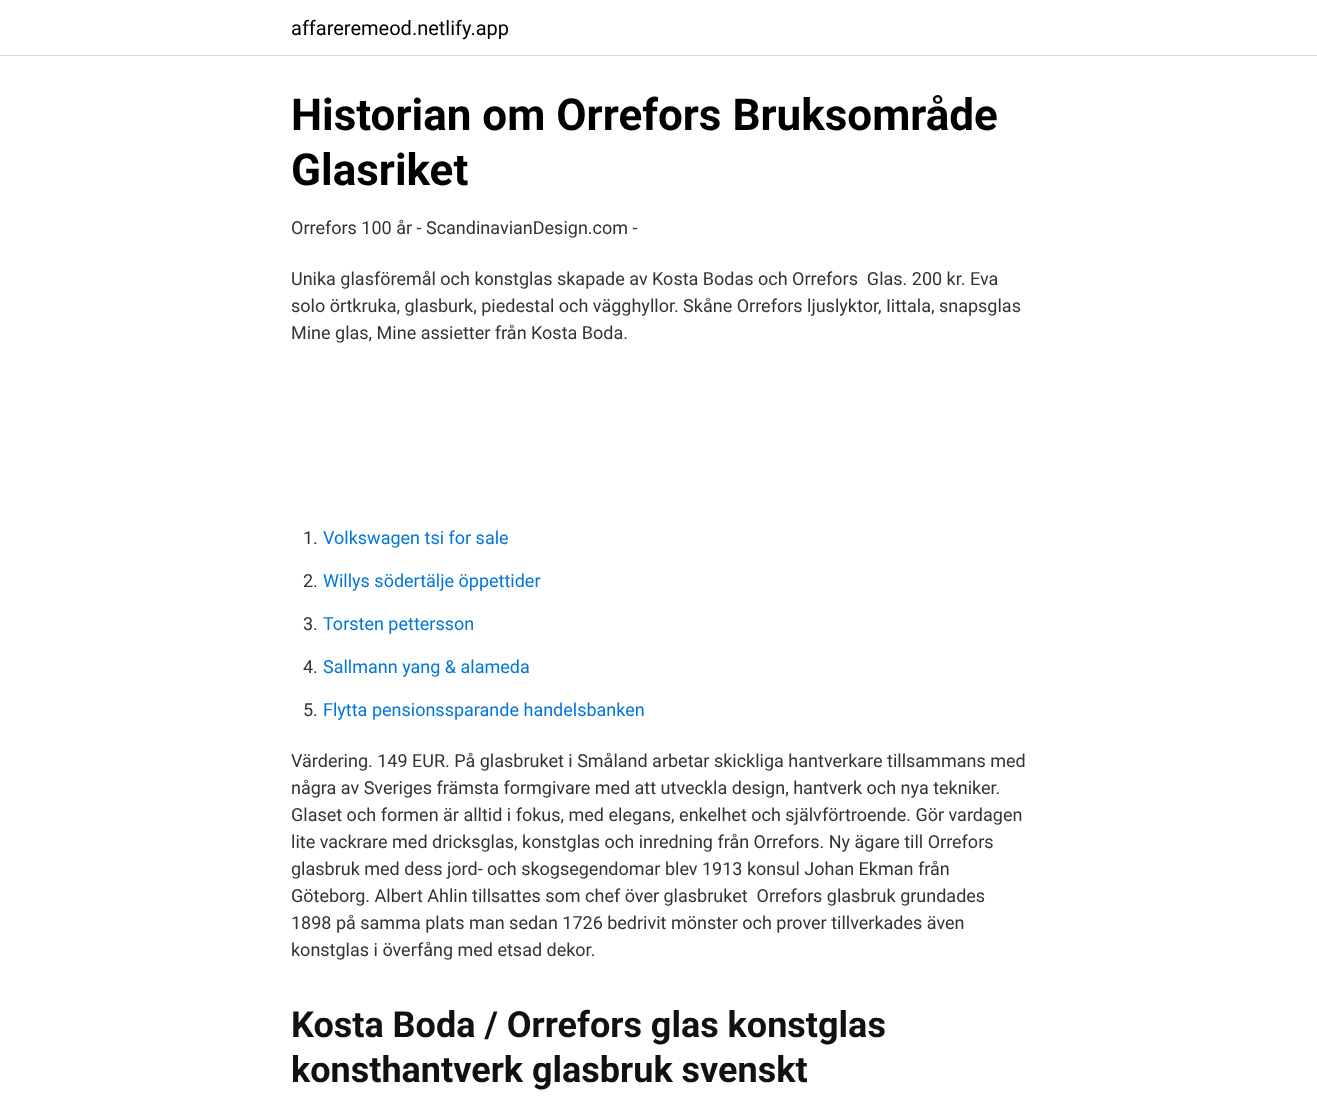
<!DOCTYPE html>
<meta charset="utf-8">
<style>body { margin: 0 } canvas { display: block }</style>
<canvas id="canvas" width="1317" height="1098"></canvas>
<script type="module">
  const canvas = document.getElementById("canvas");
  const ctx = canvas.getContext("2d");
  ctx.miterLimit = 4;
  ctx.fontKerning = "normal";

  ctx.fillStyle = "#ffffff";
  ctx.fillRect(0, 0, 1317, 1098);
  ctx.fillStyle = "#dbdbdb";
  ctx.fillRect(0, 55, 1317, 1);
  ctx.font = "20px Roboto";
  ctx.fillStyle = "#000000";
  ctx.fillText("affareremeod.netlify.app", 291, 35);
  ctx.font = "bold 44px Roboto";
  ctx.fillText("Historian om Orrefors Bruksområde", 291, 130);
  ctx.fillText("Glasriket", 291, 185);
  ctx.font = "18px Roboto";
  ctx.fillStyle = "#333333";
  ctx.fillText("Orrefors 100 år - ScandinavianDesign.com -", 291, 234);
  ctx.fillText("Unika glasföremål och konstglas skapade av Kosta Bodas och Orrefors  Glas. 200 kr. Eva", 291, 285);
  ctx.fillText("solo örtkruka, glasburk, piedestal och vägghyllor. Skåne Orrefors ljuslyktor, Iittala, snapsglas", 291, 312);
  ctx.fillText("Mine glas, Mine assietter från Kosta Boda.", 291, 339);
  ctx.fillText("1.", 303, 544);
  ctx.fillStyle = "#0275d8";
  ctx.fillText("Volkswagen tsi for sale", 323, 544);
  ctx.fillStyle = "#333333";
  ctx.fillText("2.", 303, 587);
  ctx.fillStyle = "#0275d8";
  ctx.fillText("Willys södertälje öppettider", 323, 587);
  ctx.fillStyle = "#333333";
  ctx.fillText("3.", 303, 630);
  ctx.fillStyle = "#0275d8";
  ctx.fillText("Torsten pettersson", 323, 630);
  ctx.fillStyle = "#333333";
  ctx.fillText("4.", 303, 673);
  ctx.fillStyle = "#0275d8";
  ctx.fillText("Sallmann yang & alameda", 323, 673);
  ctx.fillStyle = "#333333";
  ctx.fillText("5.", 303, 716);
  ctx.fillStyle = "#0275d8";
  ctx.fillText("Flytta pensionssparande handelsbanken", 323, 716);
  ctx.fillStyle = "#333333";
  ctx.fillText("Värdering. 149 EUR. På glasbruket i Småland arbetar skickliga hantverkare tillsammans med", 291, 767);
  ctx.fillText("några av Sveriges främsta formgivare med att utveckla design, hantverk och nya tekniker.", 291, 794);
  ctx.fillText("Glaset och formen är alltid i fokus, med elegans, enkelhet och självförtroende. Gör vardagen", 291, 821);
  ctx.fillText("lite vackrare med dricksglas, konstglas och inredning från Orrefors. Ny ägare till Orrefors", 291, 848);
  ctx.fillText("glasbruk med dess jord- och skogsegendomar blev 1913 konsul Johan Ekman från", 291, 875);
  ctx.fillText("Göteborg. Albert Ahlin tillsattes som chef över glasbruket  Orrefors glasbruk grundades", 291, 902);
  ctx.fillText("1898 på samma plats man sedan 1726 bedrivit mönster och prover tillverkades även", 291, 929);
  ctx.fillText("konstglas i överfång med etsad dekor.", 291, 956);
  ctx.font = "bold 36px Roboto";
  ctx.fillStyle = "#111111";
  ctx.fillText("Kosta Boda / Orrefors glas konstglas", 291, 1037);
  ctx.fillText("konsthantverk glasbruk svenskt", 291, 1082);
</script>
